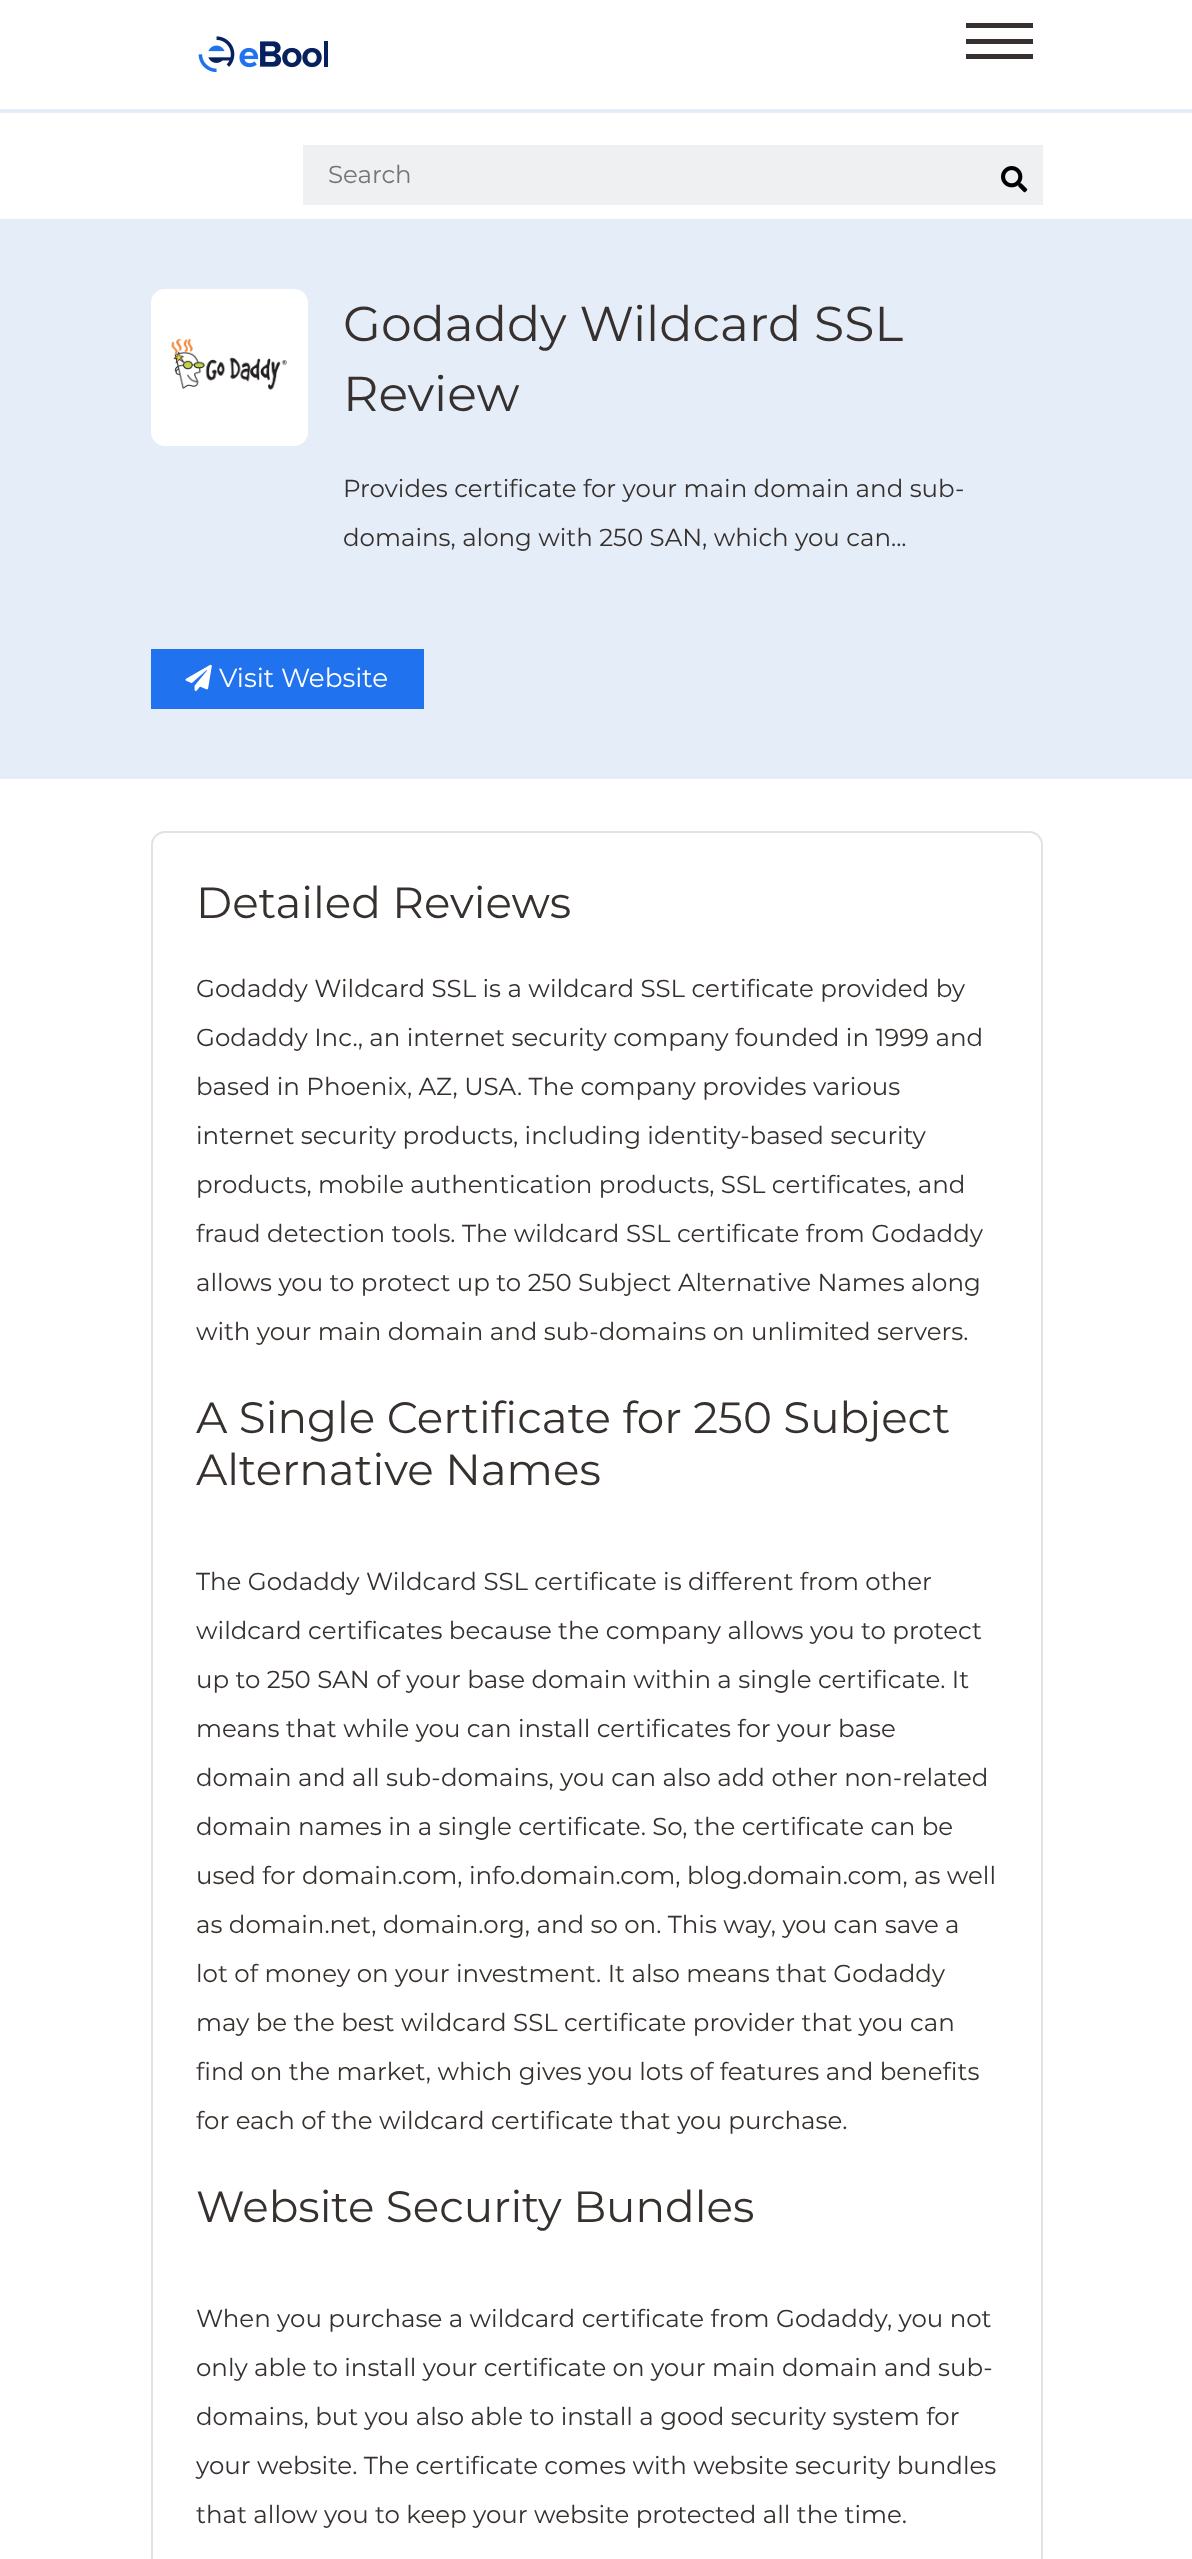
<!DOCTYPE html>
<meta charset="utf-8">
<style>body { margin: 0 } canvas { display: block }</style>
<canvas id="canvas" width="1192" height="2559"></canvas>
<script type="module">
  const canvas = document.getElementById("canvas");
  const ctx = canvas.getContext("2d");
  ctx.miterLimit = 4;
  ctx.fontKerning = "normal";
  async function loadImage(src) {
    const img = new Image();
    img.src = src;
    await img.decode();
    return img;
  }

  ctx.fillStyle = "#ffffff";
  ctx.fillRect(0, 0, 1192, 2559);
  ctx.drawImage(await loadImage("img1.png"), 198, 36, 130, 37);
  ctx.fillStyle = "#36312e";
  ctx.fillRect(966, 23, 67, 5);
  ctx.fillRect(966, 39, 67, 5);
  ctx.fillRect(966, 54, 67, 5);
  ctx.fillStyle = "#e5edf8";
  ctx.fillRect(0, 109, 1192, 4);
  ctx.fillStyle = "#eff0f1";
  ctx.fillRect(303, 145, 740, 60);
  ctx.font = "24.5px Montserrat";
  ctx.fillStyle = "#757575";
  ctx.fillText("Search", 328, 183);
  ctx.drawImage(await loadImage("img2.png"), 1001, 166, 27, 27);
  ctx.fillStyle = "#e5edf8";
  ctx.fillRect(0, 219, 1192, 560);
  ctx.fillStyle = "#ffffff";
  ctx.beginPath();
  ctx.roundRect(151, 289, 157, 157, 14);
  ctx.fill();
  ctx.drawImage(await loadImage("img3.png"), 171, 338, 116, 52);
  ctx.font = "49px Montserrat";
  ctx.fillStyle = "#36312e";
  ctx.fillText("Godaddy Wildcard SSL", 343, 341);
  ctx.fillText("Review", 343, 411);
  ctx.font = "24.5px Montserrat";
  ctx.fillText("Provides certificate for your main domain and sub-", 343, 497);
  ctx.fillText("domains, along with 250 SAN, which you can...", 343, 546);
  ctx.fillStyle = "#2072ef";
  ctx.fillRect(151, 649, 273, 60);
  ctx.drawImage(await loadImage("img4.png"), 185, 664, 27, 27);
  ctx.font = "26.25px Montserrat";
  ctx.fillStyle = "#ffffff";
  ctx.fillText("Visit Website", 219, 687);
  ctx.beginPath();
  ctx.roundRect(152, 832, 890, 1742, 13);
  ctx.strokeStyle = "#e3e2e2";
  ctx.lineWidth = 2;
  ctx.stroke();
  ctx.font = "43.75px Montserrat";
  ctx.fillStyle = "#36312e";
  ctx.fillText("Detailed Reviews", 196, 918);
  ctx.font = "24.5px Montserrat";
  ctx.fillText("Godaddy Wildcard SSL is a wildcard SSL certificate provided by", 196, 997);
  ctx.fillText("Godaddy Inc., an internet security company founded in 1999 and", 196, 1046);
  ctx.fillText("based in Phoenix, AZ, USA. The company provides various", 196, 1095);
  ctx.fillText("internet security products, including identity-based security", 196, 1144);
  ctx.fillText("products, mobile authentication products, SSL certificates, and", 196, 1193);
  ctx.fillText("fraud detection tools. The wildcard SSL certificate from Godaddy", 196, 1242);
  ctx.fillText("allows you to protect up to 250 Subject Alternative Names along", 196, 1291);
  ctx.fillText("with your main domain and sub-domains on unlimited servers.", 196, 1340);
  ctx.font = "43.75px Montserrat";
  ctx.fillText("A Single Certificate for 250 Subject", 196, 1433);
  ctx.fillText("Alternative Names", 196, 1485);
  ctx.font = "24.5px Montserrat";
  ctx.fillText("The Godaddy Wildcard SSL certificate is different from other", 196, 1590);
  ctx.fillText("wildcard certificates because the company allows you to protect", 196, 1639);
  ctx.fillText("up to 250 SAN of your base domain within a single certificate. It", 196, 1688);
  ctx.fillText("means that while you can install certificates for your base", 196, 1737);
  ctx.fillText("domain and all sub-domains, you can also add other non-related", 196, 1786);
  ctx.fillText("domain names in a single certificate. So, the certificate can be", 196, 1835);
  ctx.fillText("used for domain.com, info.domain.com, blog.domain.com, as well", 196, 1884);
  ctx.fillText("as domain.net, domain.org, and so on. This way, you can save a", 196, 1933);
  ctx.fillText("lot of money on your investment. It also means that Godaddy", 196, 1982);
  ctx.fillText("may be the best wildcard SSL certificate provider that you can", 196, 2031);
  ctx.fillText("find on the market, which gives you lots of features and benefits", 196, 2080);
  ctx.fillText("for each of the wildcard certificate that you purchase.", 196, 2129);
  ctx.font = "43.75px Montserrat";
  ctx.fillText("Website Security Bundles", 196, 2222);
  ctx.font = "24.5px Montserrat";
  ctx.fillText("When you purchase a wildcard certificate from Godaddy, you not", 196, 2327);
  ctx.fillText("only able to install your certificate on your main domain and sub-", 196, 2376);
  ctx.fillText("domains, but you also able to install a good security system for", 196, 2425);
  ctx.fillText("your website. The certificate comes with website security bundles", 196, 2474);
  ctx.fillText("that allow you to keep your website protected all the time.", 196, 2523);
</script>
